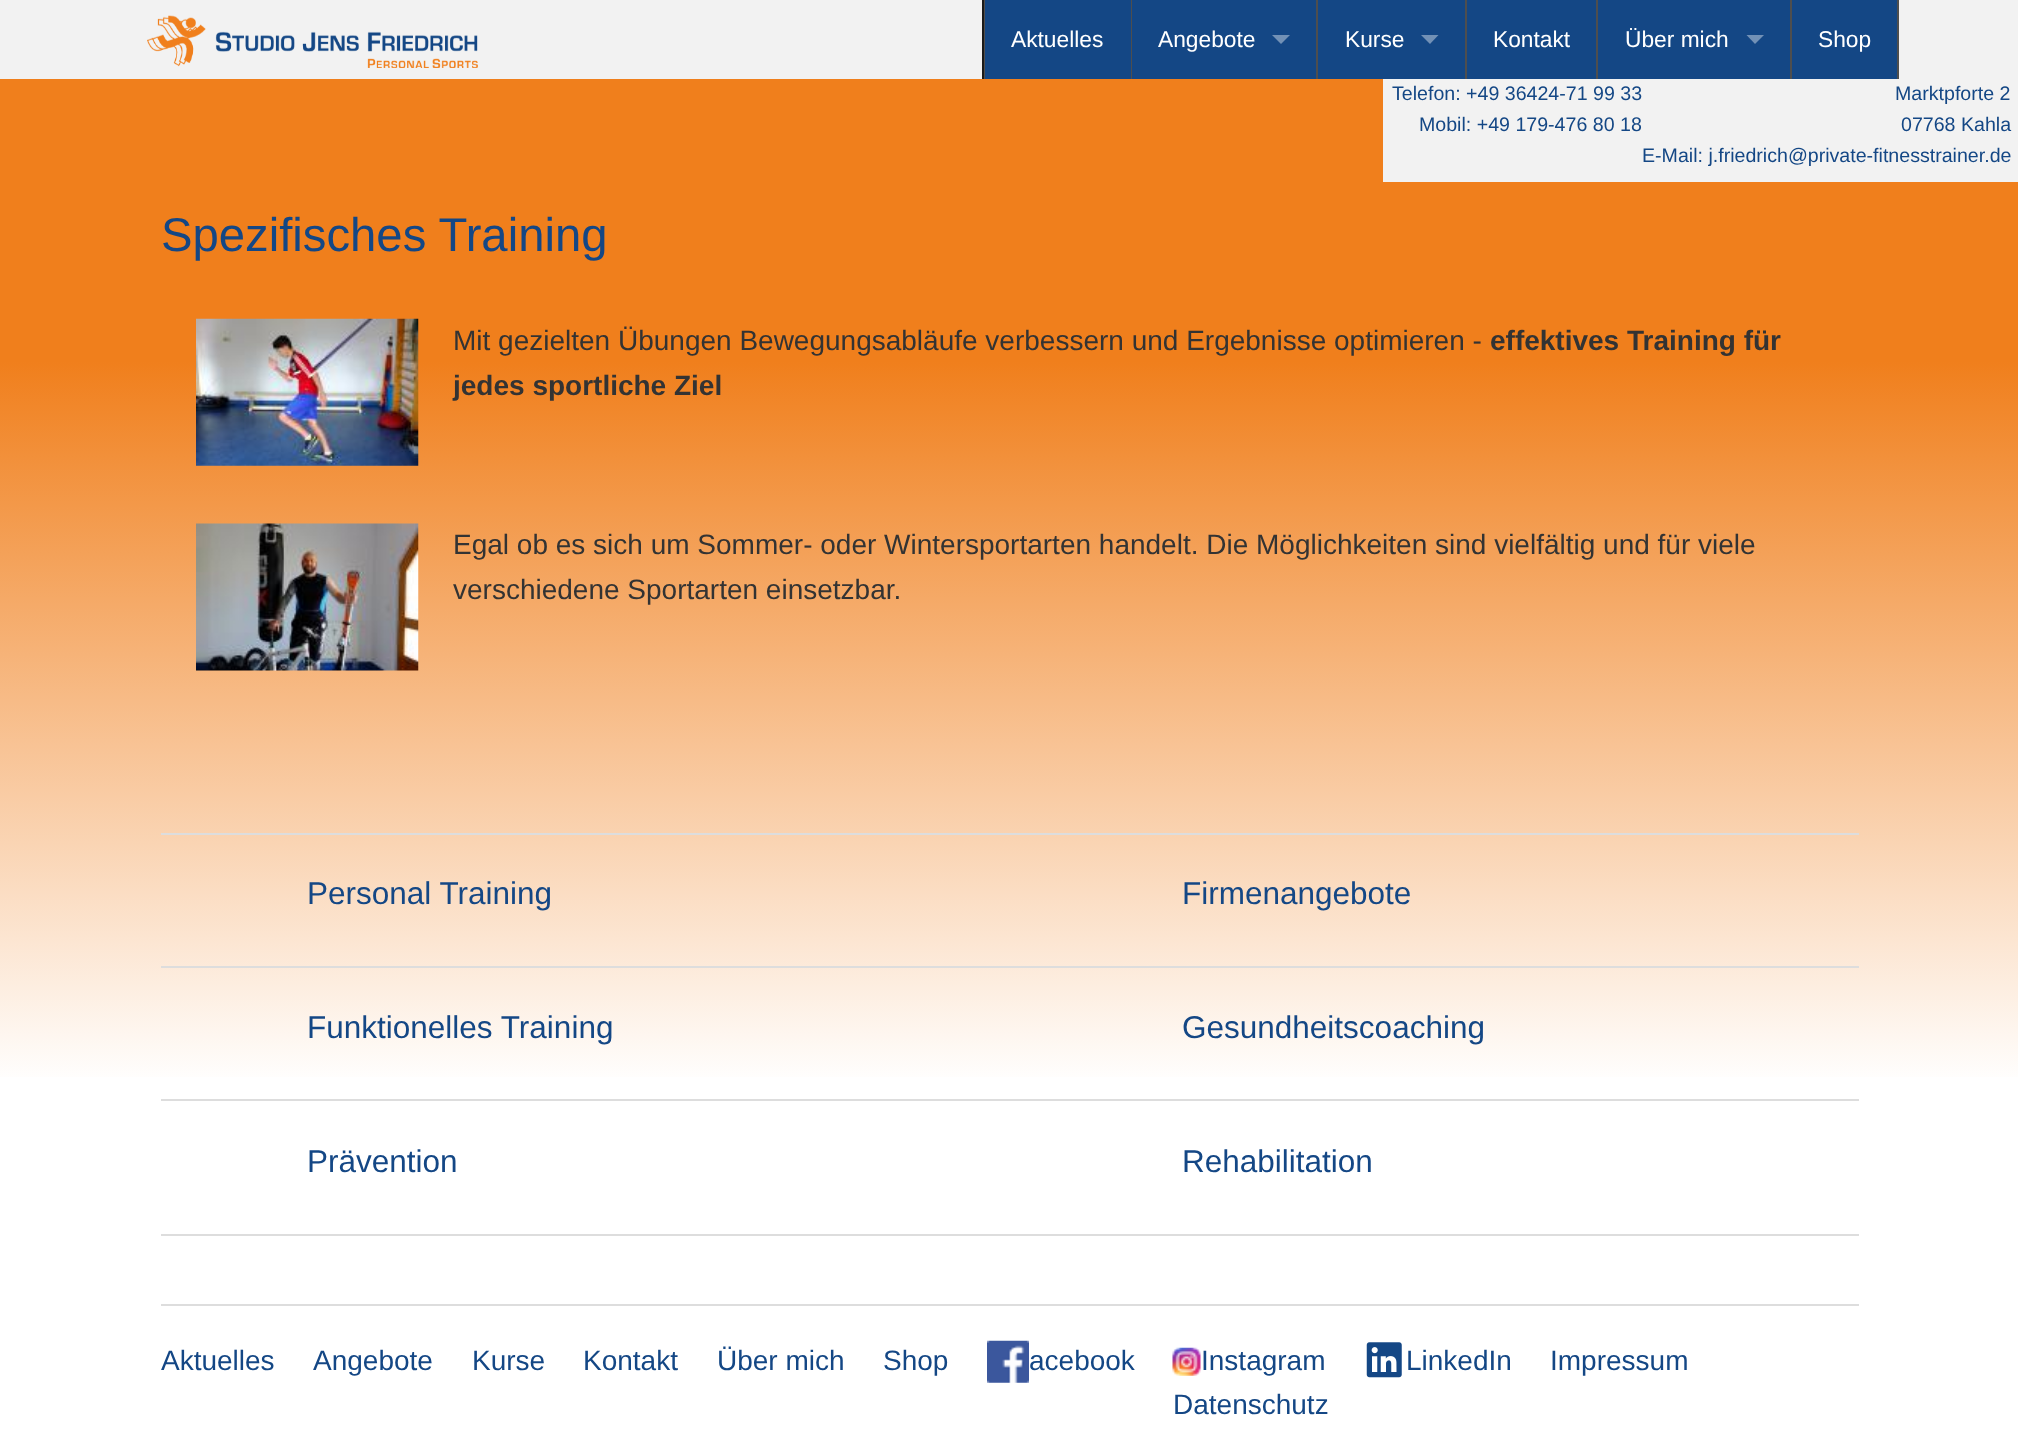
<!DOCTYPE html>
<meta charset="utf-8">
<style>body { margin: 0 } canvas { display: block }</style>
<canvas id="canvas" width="2018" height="1444"></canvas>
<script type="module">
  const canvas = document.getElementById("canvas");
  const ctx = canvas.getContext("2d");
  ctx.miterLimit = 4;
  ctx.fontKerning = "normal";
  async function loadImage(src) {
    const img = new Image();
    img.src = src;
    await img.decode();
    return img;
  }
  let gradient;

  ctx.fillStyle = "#ffffff";
  ctx.fillRect(0, 0, 2018, 1444);
  gradient = ctx.createLinearGradient(1010, 0, 1010, 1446);
  gradient.addColorStop(0.25, "#f07f1c");
  gradient.addColorStop(0.75, "#ffffff");
  ctx.fillStyle = gradient;
  ctx.fillRect(0, 79, 2018, 998);
  ctx.fillStyle = "#f2f2f2";
  ctx.fillRect(0, 0, 2018, 79);
  ctx.drawImage(await loadImage("img1.png"), 147, 15, 331, 53);
  ctx.fillStyle = "#144785";
  ctx.fillRect(1318, 0, 579, 79);
  ctx.fillStyle = "#1a1a1a";
  ctx.fillRect(982, 0, 2, 79);
  ctx.fillStyle = "#4e4e4e";
  ctx.fillRect(984, 0, 1, 79);
  ctx.fillStyle = "#144785";
  ctx.fillRect(985, 0, 146, 79);
  ctx.font = "22.75px Liberation Sans";
  ctx.fillStyle = "#ffffff";
  ctx.fillText("Aktuelles", 1011, 47);
  ctx.fillStyle = "#4e4e4e";
  ctx.fillRect(1131, 0, 1, 79);
  ctx.fillStyle = "#144785";
  ctx.fillRect(1132, 0, 184, 79);
  ctx.fillStyle = "#ffffff";
  ctx.fillText("Angebote", 1158, 47);
  ctx.fillStyle = "#7291b6";
  ctx.beginPath();
  ctx.moveTo(1272, 35);
  ctx.lineTo(1290, 35);
  ctx.lineTo(1281, 44);
  ctx.closePath();
  ctx.fill();
  ctx.fillStyle = "#4e4e4e";
  ctx.fillRect(1316, 0, 2, 79);
  ctx.fillStyle = "#ffffff";
  ctx.fillText("Kurse", 1345, 47);
  ctx.fillStyle = "#7291b6";
  ctx.beginPath();
  ctx.moveTo(1421, 35);
  ctx.lineTo(1438.5, 35);
  ctx.lineTo(1430, 44);
  ctx.closePath();
  ctx.fill();
  ctx.fillStyle = "#4e4e4e";
  ctx.fillRect(1465, 0, 2, 79);
  ctx.fillStyle = "#ffffff";
  ctx.fillText("Kontakt", 1493, 47);
  ctx.fillStyle = "#4e4e4e";
  ctx.fillRect(1596, 0, 2, 79);
  ctx.fillStyle = "#ffffff";
  ctx.fillText("Über mich", 1625, 47);
  ctx.fillStyle = "#7291b6";
  ctx.beginPath();
  ctx.moveTo(1746.5, 35);
  ctx.lineTo(1764, 35);
  ctx.lineTo(1755, 44);
  ctx.closePath();
  ctx.fill();
  ctx.fillStyle = "#4e4e4e";
  ctx.fillRect(1790, 0, 2, 79);
  ctx.fillStyle = "#ffffff";
  ctx.fillText("Shop", 1818, 47);
  ctx.fillStyle = "#4e4e4e";
  ctx.fillRect(1897, 0, 2, 79);
  ctx.fillStyle = "#f2f2f2";
  ctx.fillRect(1383, 79, 635, 103);
  ctx.font = "19.6px Liberation Sans";
  ctx.fillStyle = "#144785";
  ctx.fillText("Telefon: +49 36424-71 99 33", 1392, 100);
  ctx.fillText("Mobil: +49 179-476 80 18", 1419, 131);
  ctx.fillText("Marktpforte 2", 1895, 100);
  ctx.fillText("07768 Kahla", 1901, 131);
  ctx.fillText("E-Mail: j.friedrich@private-fitnesstrainer.de", 1642, 162);
  ctx.font = "47.25px Liberation Sans";
  ctx.fillText("Spezifisches Training", 161, 251);
  ctx.drawImage(await loadImage("img2.png"), 196, 318, 223, 148);
  ctx.font = "28px Liberation Sans";
  ctx.fillStyle = "#333333";
  ctx.fillText("Mit gezielten Übungen Bewegungsabläufe verbessern und Ergebnisse optimieren -", 453, 350);
  ctx.font = "bold 28px Liberation Sans";
  ctx.fillText("effektives Training für", 1490, 350);
  ctx.fillText("jedes sportliche Ziel", 453, 395);
  ctx.drawImage(await loadImage("img3.png"), 196, 523, 223, 148);
  ctx.font = "28px Liberation Sans";
  ctx.fillText("Egal ob es sich um Sommer- oder Wintersportarten handelt. Die Möglichkeiten sind vielfältig und für viele", 453, 554);
  ctx.fillText("verschiedene Sportarten einsetzbar.", 453, 599);
  ctx.fillStyle = "#dddddd";
  ctx.fillRect(161, 833, 1698, 2);
  ctx.font = "31.5px Liberation Sans";
  ctx.fillStyle = "#144785";
  ctx.fillText("Personal Training", 307, 904);
  ctx.fillText("Firmenangebote", 1182, 904);
  ctx.fillStyle = "#dddddd";
  ctx.fillRect(161, 966, 1698, 2);
  ctx.fillStyle = "#144785";
  ctx.fillText("Funktionelles Training", 307, 1038);
  ctx.fillText("Gesundheitscoaching", 1182, 1038);
  ctx.fillStyle = "#dddddd";
  ctx.fillRect(161, 1099, 1698, 2);
  ctx.fillStyle = "#144785";
  ctx.fillText("Prävention", 307, 1172);
  ctx.fillText("Rehabilitation", 1182, 1172);
  ctx.fillStyle = "#dddddd";
  ctx.fillRect(161, 1234, 1698, 2);
  ctx.fillRect(161, 1304, 1698, 2);
  ctx.font = "28px Liberation Sans";
  ctx.fillStyle = "#144785";
  ctx.fillText("Aktuelles", 161, 1370);
  ctx.fillText("Angebote", 313, 1370);
  ctx.fillText("Kurse", 472, 1370);
  ctx.fillText("Kontakt", 583, 1370);
  ctx.fillText("Über mich", 717, 1370);
  ctx.fillText("Shop", 883, 1370);
  ctx.drawImage(await loadImage("img4.png"), 987, 1340, 42, 43);
  ctx.fillText("acebook", 1029, 1370);
  ctx.drawImage(await loadImage("img5.png"), 1172, 1347, 29, 29);
  ctx.fillText("Instagram", 1201, 1370);
  ctx.drawImage(await loadImage("img6.png"), 1366, 1342, 36, 36);
  ctx.fillText("LinkedIn", 1406, 1370);
  ctx.fillText("Impressum", 1550, 1370);
  ctx.fillText("Datenschutz", 1173, 1414);
</script>
